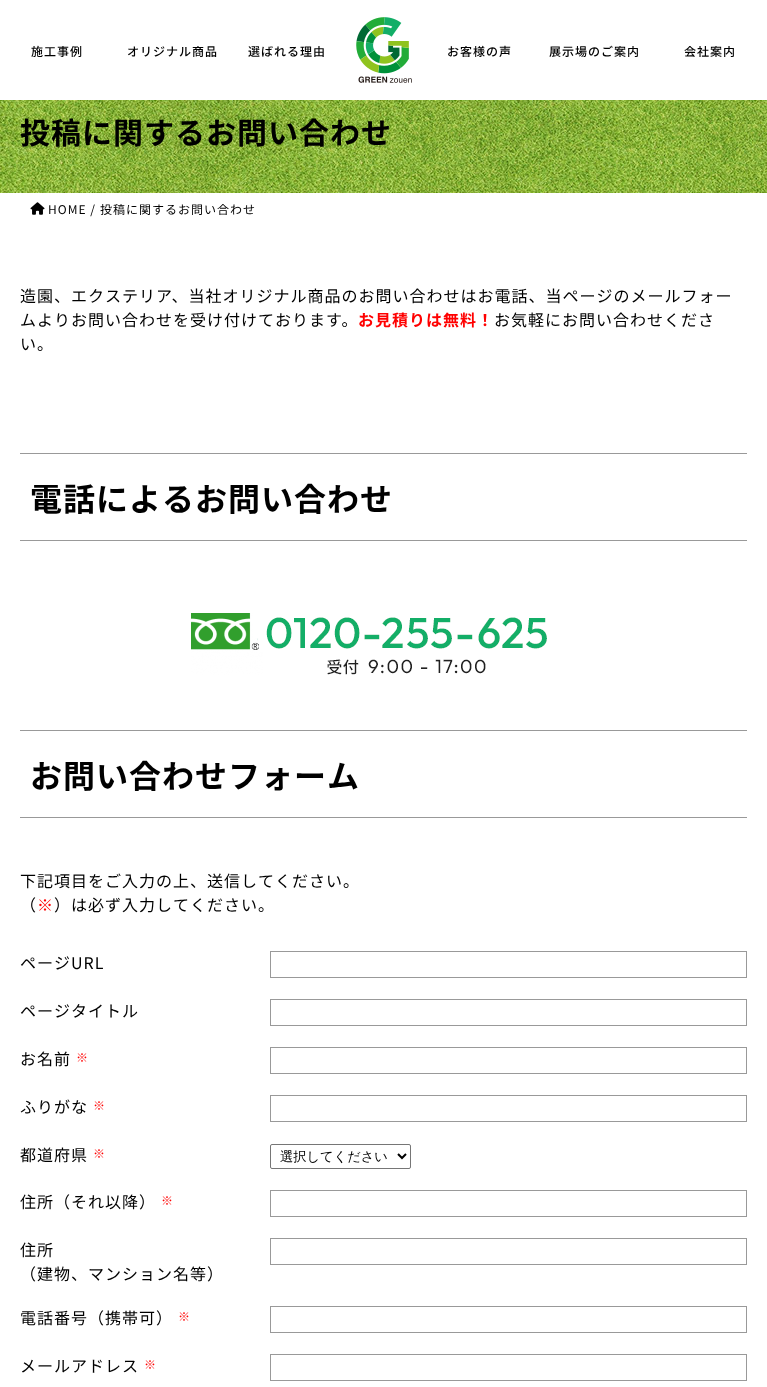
<!DOCTYPE html>
<meta charset="utf-8">
<style>body { margin: 0 } canvas { display: block }</style>
<canvas id="canvas" width="767" height="1387"></canvas>
<script type="module">
  const canvas = document.getElementById("canvas");
  const ctx = canvas.getContext("2d");
  ctx.miterLimit = 4;
  ctx.fontKerning = "normal";
  async function loadImage(src) {
    const img = new Image();
    img.src = src;
    await img.decode();
    return img;
  }

  ctx.fillStyle = "#ffffff";
  ctx.fillRect(0, 0, 767, 1387);
  ctx.letterSpacing = "1px";
  ctx.font = "500 12px Noto Sans JP";
  ctx.fillStyle = "#000000";
  ctx.fillText("施工事例", 31, 56);
  ctx.fillText("オリジナル商品", 127, 56);
  ctx.fillText("選ばれる理由", 248, 56);
  ctx.drawImage(await loadImage("img1.png"), 356, 17, 56, 66);
  ctx.fillText("お客様の声", 447, 56);
  ctx.fillText("展示場のご案内", 549, 56);
  ctx.fillText("会社案内", 684, 56);
  ctx.drawImage(await loadImage("img2.png"), 0, 100, 767, 93);
  ctx.font = "bold 30px Noto Sans JP";
  ctx.fillText("投稿に関するお問い合わせ", 20, 144);
  ctx.drawImage(await loadImage("img3.png"), 30, 202, 15, 13);
  ctx.font = "12px Noto Sans JP";
  ctx.fillText("HOME /", 48, 214);
  ctx.fillText("投稿に関するお問い合わせ", 100, 214);
  ctx.font = "16px Noto Sans JP";
  ctx.fillText("造園、エクステリア、当社オリジナル商品のお問い合わせはお電話、当ページのメールフォー", 20, 302);
  ctx.fillText("ムよりお問い合わせを受け付けております。", 20, 326);
  ctx.font = "bold 16px Noto Sans JP";
  ctx.fillStyle = "#ff0000";
  ctx.fillText("お見積りは無料！", 358, 326);
  ctx.font = "16px Noto Sans JP";
  ctx.fillStyle = "#000000";
  ctx.fillText("お気軽にお問い合わせくださ", 494, 326);
  ctx.fillText("い。", 20, 350);
  ctx.fillStyle = "#999999";
  ctx.fillRect(20, 453, 727, 1);
  ctx.fillRect(20, 540, 727, 1);
  ctx.font = "bold 32px Noto Sans JP";
  ctx.fillStyle = "#000000";
  ctx.fillText("電話によるお問い合わせ", 30, 511);
  ctx.drawImage(await loadImage("img4.png"), 191, 613, 356, 62);
  ctx.fillStyle = "#999999";
  ctx.fillRect(20, 730, 727, 1);
  ctx.fillRect(20, 817, 727, 1);
  ctx.fillStyle = "#000000";
  ctx.fillText("お問い合わせフォーム", 30, 788);
  ctx.font = "16px Noto Sans JP";
  ctx.fillText("下記項目をご入力の上、送信してください。", 20, 887);
  ctx.fillText("（", 20, 911);
  ctx.fillStyle = "#ff0000";
  ctx.fillText("※", 37, 911);
  ctx.fillStyle = "#000000";
  ctx.fillText("）は必ず入力してください。", 54, 911);
  ctx.fillText("ページURL", 20, 969);
  ctx.strokeStyle = "#999999";
  ctx.strokeRect(270.5, 951.5, 476, 26);
  ctx.fillText("ページタイトル", 20, 1017);
  ctx.strokeRect(270.5, 999.5, 476, 26);
  ctx.fillText("お名前", 20, 1065);
  ctx.font = "12px Noto Sans JP";
  ctx.fillStyle = "#ff0000";
  ctx.fillText("※", 76, 1062);
  ctx.strokeRect(270.5, 1047.5, 476, 26);
  ctx.font = "16px Noto Sans JP";
  ctx.fillStyle = "#000000";
  ctx.fillText("ふりがな", 20, 1113);
  ctx.font = "12px Noto Sans JP";
  ctx.fillStyle = "#ff0000";
  ctx.fillText("※", 93, 1110);
  ctx.strokeRect(270.5, 1095.5, 476, 26);
  ctx.font = "16px Noto Sans JP";
  ctx.fillStyle = "#000000";
  ctx.fillText("都道府県", 20, 1161);
  ctx.font = "12px Noto Sans JP";
  ctx.fillStyle = "#ff0000";
  ctx.fillText("※", 93, 1158);
  ctx.beginPath();
  ctx.roundRect(270.5, 1144.5, 140, 24, 1.5);
  ctx.strokeStyle = "#767676";
  ctx.stroke();
  ctx.beginPath();
  ctx.moveTo(398, 1154);
  ctx.lineTo(402, 1158);
  ctx.lineTo(406, 1154);
  ctx.strokeStyle = "#000000";
  ctx.lineWidth = 2;
  ctx.stroke();
  ctx.letterSpacing = "0px";
  ctx.font = "500 13.25px WenQuanYi Zen Hei";
  ctx.fillStyle = "#000000";
  ctx.fillText("選択してください", 280, 1161);
  ctx.letterSpacing = "1px";
  ctx.font = "16px Noto Sans JP";
  ctx.fillText("住所（それ以降）", 20, 1208);
  ctx.font = "12px Noto Sans JP";
  ctx.fillStyle = "#ff0000";
  ctx.fillText("※", 161, 1205);
  ctx.strokeStyle = "#999999";
  ctx.lineWidth = 1;
  ctx.strokeRect(270.5, 1190.5, 476, 26);
  ctx.font = "16px Noto Sans JP";
  ctx.fillStyle = "#000000";
  ctx.fillText("住所", 20, 1256);
  ctx.fillText("（建物、マンション名等）", 20, 1280);
  ctx.strokeRect(270.5, 1238.5, 476, 26);
  ctx.fillText("電話番号（携帯可）", 20, 1324);
  ctx.font = "12px Noto Sans JP";
  ctx.fillStyle = "#ff0000";
  ctx.fillText("※", 178, 1321);
  ctx.strokeRect(270.5, 1306.5, 476, 26);
  ctx.font = "16px Noto Sans JP";
  ctx.fillStyle = "#000000";
  ctx.fillText("メールアドレス", 20, 1372);
  ctx.font = "12px Noto Sans JP";
  ctx.fillStyle = "#ff0000";
  ctx.fillText("※", 144, 1369);
  ctx.strokeRect(270.5, 1354.5, 476, 26);
</script>
